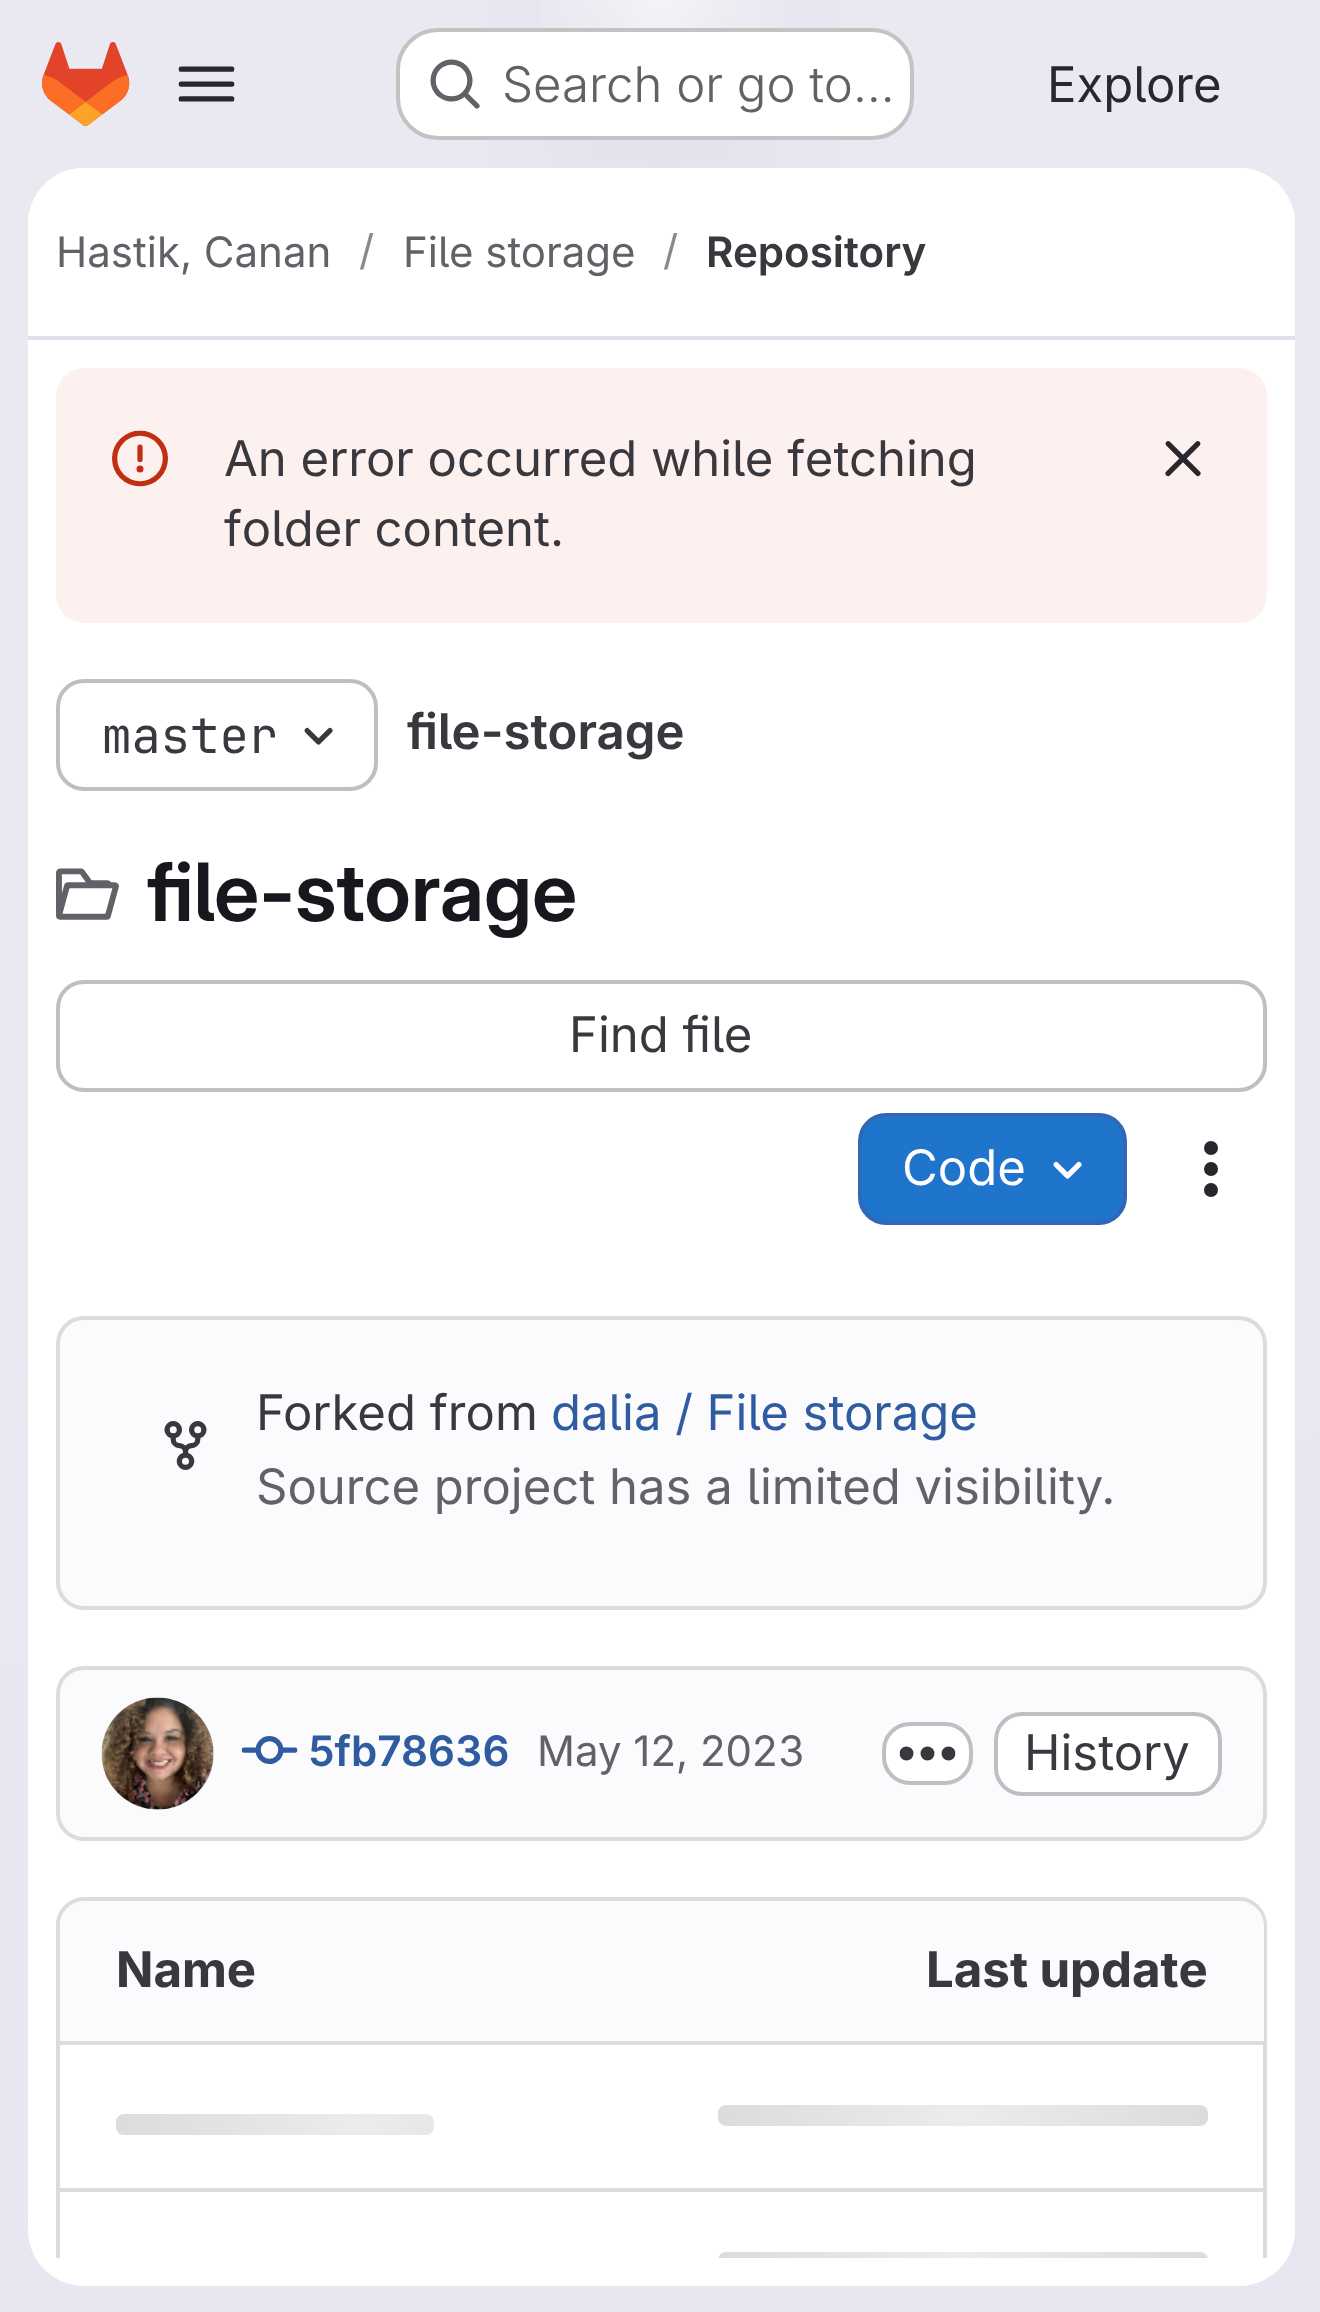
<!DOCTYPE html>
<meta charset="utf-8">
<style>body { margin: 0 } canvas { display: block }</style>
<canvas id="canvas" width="1320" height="2312"></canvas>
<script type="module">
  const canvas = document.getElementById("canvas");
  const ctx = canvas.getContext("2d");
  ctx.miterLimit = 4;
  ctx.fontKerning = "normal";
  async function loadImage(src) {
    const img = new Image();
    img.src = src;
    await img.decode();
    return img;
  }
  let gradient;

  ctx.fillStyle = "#ffffff";
  ctx.fillRect(0, 0, 1320, 2312);
  gradient = ctx.createLinearGradient(879, 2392, 444, -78);
  gradient.addColorStop(0, "#e8e6f0");
  gradient.addColorStop(0.7, "#eae9f2");
  ctx.fillStyle = gradient;
  ctx.fillRect(0, 0, 1320, 2312);
  gradient = ctx.createRadialGradient(662, 0, 0, 662, 0, 662);
  gradient.addColorStop(0, "#e4e2ed");
  gradient.addColorStop(0.37, "rgba(228, 226, 237, 0)");
  ctx.fillStyle = gradient;
  ctx.beginPath();
  ctx.rect(485, 0, 353, 168);
  ctx.save();
  ctx.clip();
  ctx.scale(1, 2314 / 662);
  ctx.fillRect(0, 0, 1320, 662);
  ctx.restore();
  gradient = ctx.createRadialGradient(662, 0, 0, 662, 0, 662);
  gradient.addColorStop(0, "#e4e2ec");
  gradient.addColorStop(0.26, "rgba(228, 226, 236, 0)");
  ctx.fillStyle = gradient;
  ctx.beginPath();
  ctx.rect(592, 12, 140, 150);
  ctx.save();
  ctx.clip();
  ctx.scale(1, 2314 / 662);
  ctx.fillRect(0, 0, 1320, 662);
  ctx.restore();
  gradient = ctx.createRadialGradient(662, 0, 0, 662, 0, 2406);
  gradient.addColorStop(0, "rgba(255, 255, 255, 0.6)");
  gradient.addColorStop(0.06, "rgba(255, 255, 255, 0)");
  ctx.fillStyle = gradient;
  ctx.fillRect(540, 0, 244, 28);
  ctx.drawImage(await loadImage("img1.png"), 42, 42, 88, 84);
  ctx.drawImage(await loadImage("img2.png"), 178, 66, 57, 36);
  ctx.fillStyle = "#ffffff";
  ctx.beginPath();
  ctx.roundRect(396, 28, 518, 112, 42);
  ctx.fill();
  ctx.beginPath();
  ctx.roundRect(398, 30, 514, 108, 40);
  ctx.strokeStyle = "rgba(5, 5, 6, 0.24)";
  ctx.lineWidth = 4;
  ctx.stroke();
  ctx.drawImage(await loadImage("img3.png"), 430, 59, 50, 50);
  ctx.font = "300 49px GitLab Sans";
  ctx.fillStyle = "#626168";
  ctx.fillText("Search or go to…", 502, 102);
  ctx.font = "49px GitLab Sans";
  ctx.fillStyle = "#28272d";
  ctx.fillText("Explore", 1047, 102);
  ctx.fillStyle = "#ffffff";
  ctx.beginPath();
  ctx.roundRect(28, 168, 1267, 2118, 56);
  ctx.fill();
  ctx.beginPath();
  ctx.roundRect(28, 168, 1267, 172, [56, 56, 0, 0]);
  ctx.fill();
  ctx.fillStyle = "#e1dfec";
  ctx.fillRect(28, 336, 1267, 4);
  ctx.font = "42px GitLab Sans";
  ctx.fillStyle = "#626168";
  ctx.fillText("Hastik, Canan", 56, 267);
  ctx.fillStyle = "#89888d";
  ctx.fillText("/", 359, 265);
  ctx.fillStyle = "#626168";
  ctx.fillText("File storage", 403, 267);
  ctx.fillStyle = "#89888d";
  ctx.fillText("/", 663, 265);
  ctx.font = "600 42px 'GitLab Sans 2'";
  ctx.fillStyle = "#3a383f";
  ctx.fillText("Repository", 706, 267);
  ctx.fillStyle = "#fcf1ef";
  ctx.beginPath();
  ctx.roundRect(56, 368, 1211, 255, 28);
  ctx.fill();
  ctx.drawImage(await loadImage("img4.png"), 112, 430, 56, 57);
  ctx.font = "49px GitLab Sans";
  ctx.fillStyle = "#3a383f";
  ctx.fillText("An error occurred while fetching", 224, 476);
  ctx.fillText("folder content.", 224, 546);
  ctx.drawImage(await loadImage("img5.png"), 1165, 441, 36, 36);
  ctx.beginPath();
  ctx.roundRect(58, 681, 318, 108, 26);
  ctx.strokeStyle = "#bfbfc3";
  ctx.stroke();
  ctx.font = "49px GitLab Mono";
  ctx.fillText("master", 102, 753);
  ctx.drawImage(await loadImage("img6.png"), 304, 727, 29, 18);
  ctx.font = "600 49px 'GitLab Sans 2'";
  ctx.fillText("file-storage", 407, 749);
  ctx.drawImage(await loadImage("img7.png"), 56, 868, 63, 52);
  ctx.font = "600 80.5px GitLab Sans";
  ctx.fillStyle = "#18171d";
  ctx.fillText("file-storage", 147, 921);
  ctx.beginPath();
  ctx.roundRect(58, 982, 1207, 108, 26);
  ctx.stroke();
  ctx.font = "49px GitLab Sans";
  ctx.fillStyle = "#3a383f";
  ctx.fillText("Find file", 569, 1052);
  ctx.fillStyle = "#1f75cb";
  ctx.beginPath();
  ctx.roundRect(860, 1115, 265, 108, 26);
  ctx.fill();
  ctx.strokeStyle = "#2f68b4";
  ctx.stroke();
  ctx.fillStyle = "#ffffff";
  ctx.fillText("Code", 902, 1185);
  ctx.drawImage(await loadImage("img8.png"), 1053, 1161, 29, 18);
  ctx.drawImage(await loadImage("img9.png"), 1204, 1141, 14, 56);
  ctx.fillStyle = "#fbfafd";
  ctx.beginPath();
  ctx.roundRect(58, 1318, 1207, 290, 26);
  ctx.fill();
  ctx.strokeStyle = "#dcdcde";
  ctx.stroke();
  ctx.drawImage(await loadImage("img10.png"), 164, 1421, 43, 49);
  ctx.fillStyle = "#3a383f";
  ctx.fillText("Forked from", 256, 1430);
  ctx.fillStyle = "#2f5ca0";
  ctx.fillText("dalia / File storage", 551, 1430);
  ctx.fillStyle = "#626168";
  ctx.fillText("Source project has a limited visibility.", 256, 1504);
  ctx.fillStyle = "#fbfafd";
  ctx.beginPath();
  ctx.roundRect(58, 1668, 1207, 171, 26);
  ctx.fill();
  ctx.stroke();
  ctx.drawImage(await loadImage("img11.png"), 101, 1697, 113, 113);
  ctx.beginPath();
  ctx.arc(158, 1754, 54, 0, Math.PI * 2);
  ctx.strokeStyle = "rgba(5, 5, 6, 0.08)";
  ctx.stroke();
  ctx.drawImage(await loadImage("img12.png"), 241, 1736, 57, 28);
  ctx.font = "600 42px 'GitLab Sans 2'";
  ctx.fillStyle = "#2f5ca0";
  ctx.fillText("5fb78636", 308, 1766);
  ctx.font = "42px GitLab Sans";
  ctx.fillStyle = "#626168";
  ctx.fillText("May 12, 2023", 537, 1766);
  ctx.fillStyle = "#ffffff";
  ctx.beginPath();
  ctx.roundRect(884, 1724, 87, 59, 26);
  ctx.fill();
  ctx.strokeStyle = "#bfbfc3";
  ctx.stroke();
  ctx.drawImage(await loadImage("img13.png"), 899, 1746, 57, 15);
  ctx.beginPath();
  ctx.roundRect(996, 1714, 224, 80, 26);
  ctx.fill();
  ctx.stroke();
  ctx.font = "49px GitLab Sans";
  ctx.fillStyle = "#3a383f";
  ctx.fillText("History", 1024, 1770);
  ctx.save();
  ctx.beginPath();
  ctx.rect(28, 340, 1267, 1918);
  ctx.clip();
  ctx.fillStyle = "#dcdcde";
  ctx.beginPath();
  ctx.moveTo(84, 1897);
  ctx.bezierCurveTo(69, 1897, 56, 1910, 56, 1925);
  ctx.lineTo(56, 2279);
  ctx.lineTo(60, 2281);
  ctx.lineTo(60, 1925);
  ctx.bezierCurveTo(60, 1912, 71, 1901, 84, 1901);
  ctx.lineTo(1239, 1901);
  ctx.bezierCurveTo(1252, 1901, 1263, 1912, 1263, 1925);
  ctx.lineTo(1263, 2281);
  ctx.lineTo(1267, 2279);
  ctx.lineTo(1267, 1925);
  ctx.bezierCurveTo(1267, 1910, 1254, 1897, 1239, 1897);
  ctx.closePath();
  ctx.fill();
  ctx.restore();
  ctx.fillStyle = "#fbfafd";
  ctx.beginPath();
  ctx.roundRect(60, 1901, 602, 140, [25, 0, 0, 0]);
  ctx.fill();
  ctx.font = "bold 49px GitLab Sans";
  ctx.fillStyle = "#3a383f";
  ctx.fillText("Name", 116, 1987);
  ctx.fillStyle = "#fbfafd";
  ctx.beginPath();
  ctx.roundRect(662, 1901, 602, 140, [0, 25, 0, 0]);
  ctx.fill();
  ctx.fillStyle = "#3a383f";
  ctx.fillText("Last update", 926, 1987);
  ctx.fillStyle = "#dcdcde";
  ctx.fillRect(60, 2041, 1204, 4);
  gradient = ctx.createLinearGradient(718, 2105, 1208, 2105);
  gradient.addColorStop(0, "#dcdcde");
  gradient.addColorStop(0.5, "#ececef");
  gradient.addColorStop(1, "#dcdcde");
  ctx.fillStyle = gradient;
  ctx.beginPath();
  ctx.roundRect(718, 2105, 490, 21, 8);
  ctx.fill();
  gradient = ctx.createLinearGradient(116, 2114, 605, 2114);
  gradient.addColorStop(0, "#dcdcde");
  gradient.addColorStop(0.5, "#ececef");
  gradient.addColorStop(1, "#dcdcde");
  ctx.fillStyle = gradient;
  ctx.beginPath();
  ctx.roundRect(116, 2114, 318, 21, 8);
  ctx.fill();
  ctx.fillStyle = "#dcdcde";
  ctx.fillRect(60, 2188, 1204, 4);
  ctx.save();
  ctx.beginPath();
  ctx.roundRect(718, 2252, 490, 21, 8);
  ctx.clip();
  gradient = ctx.createLinearGradient(718, 2252, 1208, 2252);
  gradient.addColorStop(0, "#dcdcde");
  gradient.addColorStop(0.5, "#ececef");
  gradient.addColorStop(1, "#dcdcde");
  ctx.fillStyle = gradient;
  ctx.fillRect(718, 2252, 490, 6);
  ctx.restore();
</script>
